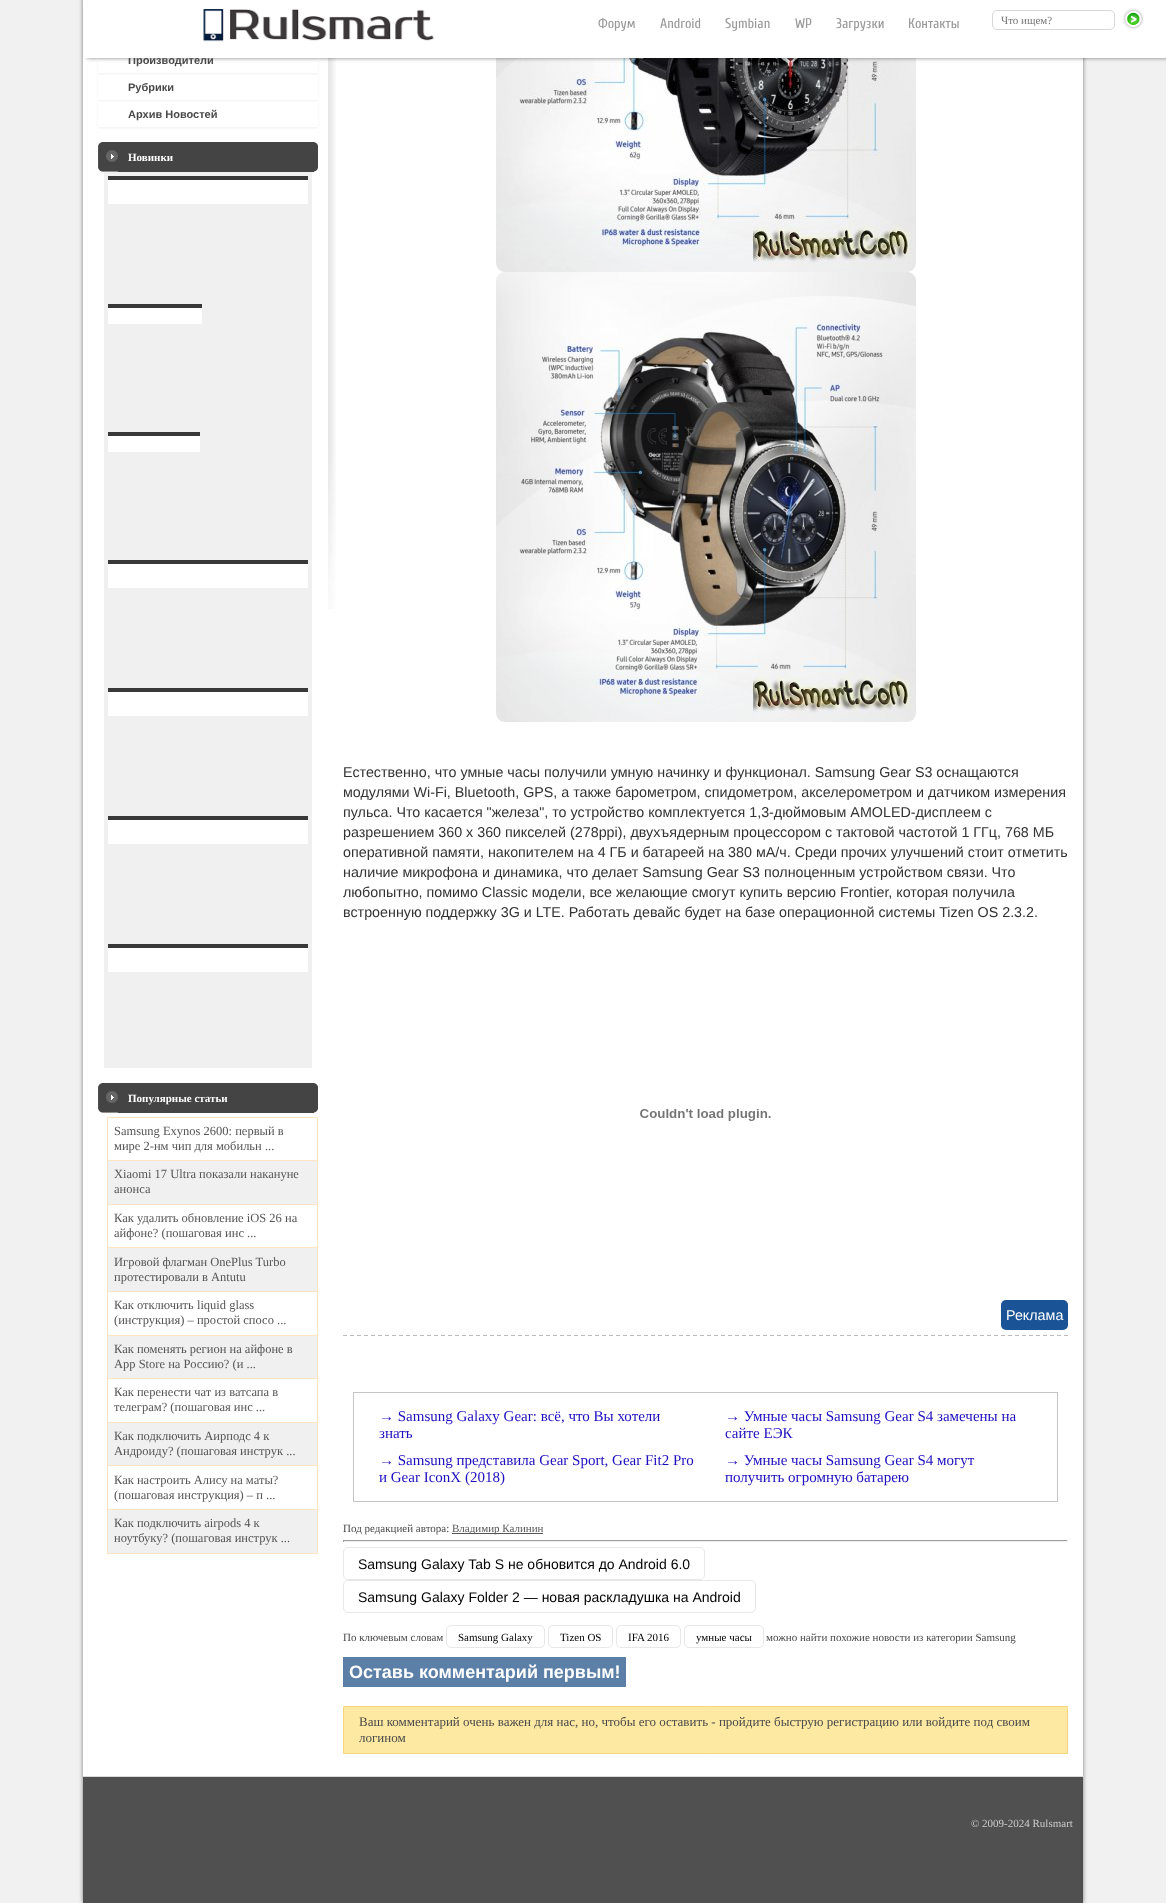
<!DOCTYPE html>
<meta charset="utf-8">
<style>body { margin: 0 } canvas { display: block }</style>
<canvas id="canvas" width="1166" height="1903"></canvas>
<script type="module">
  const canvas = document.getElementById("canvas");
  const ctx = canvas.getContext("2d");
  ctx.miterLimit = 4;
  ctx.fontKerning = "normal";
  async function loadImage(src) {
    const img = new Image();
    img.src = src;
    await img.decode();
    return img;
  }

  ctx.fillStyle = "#f1f1f1";
  ctx.fillRect(0, 0, 1166, 1903);
  ctx.fillStyle = "rgba(0, 0, 0, 0.5)";
  ctx.filter = "blur(2px)";
  ctx.beginPath();
  ctx.rect(83, -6, 1000, 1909);
  ctx.fill();
  ctx.filter = "none";
  ctx.fillStyle = "#ffffff";
  ctx.fillRect(83, 58, 1000, 1718);
  ctx.drawImage(await loadImage("img5.png"), 328, 58, 8, 385);
  ctx.drawImage(await loadImage("img7.png"), 496, 58, 420, 214);
  ctx.fillStyle = "rgba(0, 0, 0, 0.5)";
  ctx.filter = "blur(2px)";
  ctx.beginPath();
  ctx.rect(87, 8, 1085, 50);
  ctx.fill();
  ctx.filter = "none";
  ctx.save();
  ctx.beginPath();
  ctx.moveTo(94, 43);
  ctx.lineTo(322, 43);
  ctx.lineTo(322, 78);
  ctx.lineTo(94, 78);
  ctx.closePath();
  ctx.moveTo(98, 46);
  ctx.lineTo(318, 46);
  ctx.lineTo(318, 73);
  ctx.lineTo(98, 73);
  ctx.closePath();
  ctx.clip("evenodd");
  ctx.fillStyle = "#f0f0f0";
  ctx.filter = "blur(1px)";
  ctx.beginPath();
  ctx.rect(98, 47, 220, 27);
  ctx.fill();
  ctx.filter = "none";
  ctx.restore();
  ctx.font = "bold 11px Liberation Sans";
  ctx.fillStyle = "#494949";
  ctx.fillText("Производители", 128, 64);
  ctx.fillStyle = "#ffffff";
  ctx.fillRect(83, 0, 1083, 58);
  ctx.drawImage(await loadImage("img1.png"), 203, 9, 232, 33);
  ctx.font = "14px Cuprum";
  ctx.fillStyle = "#999999";
  ctx.fillText("Форум", 598, 28);
  ctx.fillText("Android", 660, 28);
  ctx.fillText("Symbian", 725, 28);
  ctx.fillText("WP", 795, 28);
  ctx.fillText("Загрузки", 836, 28);
  ctx.fillText("Контакты", 908, 28);
  ctx.beginPath();
  ctx.roundRect(992.5, 10.5, 122, 19, 4.5);
  ctx.strokeStyle = "#d8d8d8";
  ctx.stroke();
  ctx.font = "11px Liberation Serif";
  ctx.fillStyle = "#757575";
  ctx.fillText("Что ищем?", 1001, 24);
  ctx.drawImage(await loadImage("img2.png"), 1123, 8, 21, 22);
  ctx.save();
  ctx.beginPath();
  ctx.moveTo(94, 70);
  ctx.lineTo(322, 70);
  ctx.lineTo(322, 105);
  ctx.lineTo(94, 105);
  ctx.closePath();
  ctx.moveTo(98, 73);
  ctx.lineTo(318, 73);
  ctx.lineTo(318, 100);
  ctx.lineTo(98, 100);
  ctx.closePath();
  ctx.clip("evenodd");
  ctx.fillStyle = "#f0f0f0";
  ctx.filter = "blur(1px)";
  ctx.beginPath();
  ctx.rect(98, 74, 220, 27);
  ctx.fill();
  ctx.filter = "none";
  ctx.restore();
  ctx.font = "bold 11px Liberation Sans";
  ctx.fillStyle = "#494949";
  ctx.fillText("Рубрики", 128, 91);
  ctx.save();
  ctx.beginPath();
  ctx.moveTo(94, 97);
  ctx.lineTo(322, 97);
  ctx.lineTo(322, 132);
  ctx.lineTo(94, 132);
  ctx.closePath();
  ctx.moveTo(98, 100);
  ctx.lineTo(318, 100);
  ctx.lineTo(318, 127);
  ctx.lineTo(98, 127);
  ctx.closePath();
  ctx.clip("evenodd");
  ctx.fillStyle = "#f0f0f0";
  ctx.filter = "blur(1px)";
  ctx.beginPath();
  ctx.rect(98, 101, 220, 27);
  ctx.fill();
  ctx.filter = "none";
  ctx.restore();
  ctx.fillText("Архив Новостей", 128, 118);
  ctx.drawImage(await loadImage("img3.png"), 98, 142, 20, 30);
  ctx.fillStyle = "#444444";
  ctx.fillRect(118, 142, 196, 30);
  ctx.font = "bold 11px Liberation Serif";
  ctx.fillStyle = "#ffffff";
  ctx.fillText("Новинки", 128, 161);
  ctx.drawImage(await loadImage("img4.png"), 314, 142, 4, 30);
  ctx.fillStyle = "#f0f0f0";
  ctx.fillRect(104, 172, 208, 896);
  ctx.fillStyle = "#ffffff";
  ctx.fillRect(108, 180, 200, 24);
  ctx.fillStyle = "#383838";
  ctx.fillRect(108, 176, 200, 4);
  ctx.fillStyle = "#ffffff";
  ctx.fillRect(108, 308, 94, 16);
  ctx.fillStyle = "#383838";
  ctx.fillRect(108, 304, 94, 4);
  ctx.fillStyle = "#ffffff";
  ctx.fillRect(108, 436, 92, 16);
  ctx.fillStyle = "#383838";
  ctx.fillRect(108, 432, 92, 4);
  ctx.fillStyle = "#ffffff";
  ctx.fillRect(108, 564, 200, 24);
  ctx.fillStyle = "#383838";
  ctx.fillRect(108, 560, 200, 4);
  ctx.fillStyle = "#ffffff";
  ctx.fillRect(108, 692, 200, 24);
  ctx.fillStyle = "#383838";
  ctx.fillRect(108, 688, 200, 4);
  ctx.fillStyle = "#ffffff";
  ctx.fillRect(108, 820, 200, 24);
  ctx.fillStyle = "#383838";
  ctx.fillRect(108, 816, 200, 4);
  ctx.fillStyle = "#ffffff";
  ctx.fillRect(108, 948, 200, 24);
  ctx.fillStyle = "#383838";
  ctx.fillRect(108, 944, 200, 4);
  ctx.drawImage(await loadImage("img3.png"), 98, 1083, 20, 30);
  ctx.fillStyle = "#444444";
  ctx.fillRect(118, 1083, 196, 30);
  ctx.fillStyle = "#ffffff";
  ctx.fillText("Популярные статьи", 128, 1102);
  ctx.drawImage(await loadImage("img4.png"), 314, 1083, 4, 30);
  ctx.fillStyle = "#ffe4c4";
  ctx.fillRect(107, 1117, 211, 1);
  ctx.fillRect(107, 1160, 211, 1);
  ctx.fillRect(107, 1204, 211, 1);
  ctx.fillRect(107, 1247, 211, 1);
  ctx.fillRect(107, 1291, 211, 1);
  ctx.fillRect(107, 1335, 211, 1);
  ctx.fillRect(107, 1378, 211, 1);
  ctx.fillRect(107, 1422, 211, 1);
  ctx.fillRect(107, 1465, 211, 1);
  ctx.fillRect(107, 1509, 211, 1);
  ctx.fillRect(317, 1509, 1, 45);
  ctx.fillRect(317, 1465, 1, 45);
  ctx.fillRect(317, 1422, 1, 44);
  ctx.fillRect(317, 1378, 1, 45);
  ctx.fillRect(317, 1335, 1, 44);
  ctx.fillRect(317, 1291, 1, 45);
  ctx.fillRect(317, 1247, 1, 45);
  ctx.fillRect(317, 1204, 1, 44);
  ctx.fillRect(317, 1160, 1, 45);
  ctx.fillRect(317, 1117, 1, 44);
  ctx.fillRect(107, 1553, 211, 1);
  ctx.fillRect(107, 1509, 1, 45);
  ctx.fillRect(107, 1465, 1, 45);
  ctx.fillRect(107, 1422, 1, 44);
  ctx.fillRect(107, 1378, 1, 45);
  ctx.fillRect(107, 1335, 1, 44);
  ctx.fillRect(107, 1291, 1, 45);
  ctx.fillRect(107, 1247, 1, 45);
  ctx.fillRect(107, 1204, 1, 44);
  ctx.fillRect(107, 1160, 1, 45);
  ctx.fillRect(107, 1117, 1, 44);
  ctx.font = "12.5px Liberation Serif";
  ctx.fillStyle = "#555555";
  ctx.fillText("Samsung Exynos 2600: первый в", 114, 1135);
  ctx.fillText("мире 2-нм чип для мобильн ...", 114, 1150);
  ctx.fillStyle = "#f0f0f0";
  ctx.fillRect(108, 1161, 209, 43);
  ctx.fillStyle = "#555555";
  ctx.fillText("Xiaomi 17 Ultra показали накануне", 114, 1178);
  ctx.fillText("анонса", 114, 1193);
  ctx.fillText("Как удалить обновление iOS 26 на", 114, 1222);
  ctx.fillText("айфоне? (пошаговая инс ...", 114, 1237);
  ctx.fillStyle = "#f0f0f0";
  ctx.fillRect(108, 1248, 209, 43);
  ctx.fillStyle = "#555555";
  ctx.fillText("Игровой флагман OnePlus Turbo", 114, 1266);
  ctx.fillText("протестировали в Antutu", 114, 1281);
  ctx.fillText("Как отключить liquid glass", 114, 1309);
  ctx.fillText("(инструкция) – простой спосо ...", 114, 1324);
  ctx.fillStyle = "#f0f0f0";
  ctx.fillRect(108, 1336, 209, 42);
  ctx.fillStyle = "#555555";
  ctx.fillText("Как поменять регион на айфоне в", 114, 1353);
  ctx.fillText("App Store на Россию? (и ...", 114, 1368);
  ctx.fillText("Как перенести чат из ватсапа в", 114, 1396);
  ctx.fillText("телеграм? (пошаговая инс ...", 114, 1411);
  ctx.fillStyle = "#f0f0f0";
  ctx.fillRect(108, 1423, 209, 42);
  ctx.fillStyle = "#555555";
  ctx.fillText("Как подключить Аирподс 4 к", 114, 1440);
  ctx.fillText("Андроиду? (пошаговая инструк ...", 114, 1455);
  ctx.fillText("Как настроить Алису на маты?", 114, 1484);
  ctx.fillText("(пошаговая инструкция) – п ...", 114, 1499);
  ctx.fillStyle = "#f0f0f0";
  ctx.fillRect(108, 1510, 209, 43);
  ctx.fillStyle = "#555555";
  ctx.fillText("Как подключить airpods 4 к", 114, 1527);
  ctx.fillText("ноутбуку? (пошаговая инструк ...", 114, 1542);
  ctx.drawImage(await loadImage("img6.png"), 328, 443, 8, 166);
  ctx.drawImage(await loadImage("img8.png"), 496, 272, 420, 450);
  ctx.font = "14.3px Liberation Sans";
  ctx.fillStyle = "#333333";
  ctx.fillText("Естественно, что умные часы получили умную начинку и функционал. Samsung Gear S3 оснащаются", 343, 777);
  ctx.fillText("модулями Wi-Fi, Bluetooth, GPS, а также барометром, спидометром, акселерометром и датчиком измерения", 343, 797);
  ctx.fillText("пульса. Что касается \"железа\", то устройство комплектуется 1,3-дюймовым AMOLED-дисплеем с", 343, 817);
  ctx.fillText("разрешением 360 х 360 пикселей (278ppi), двухъядерным процессором с тактовой частотой 1 ГГц, 768 МБ", 343, 837);
  ctx.fillText("оперативной памяти, накопителем на 4 ГБ и батареей на 380 мА/ч. Среди прочих улучшений стоит отметить", 343, 857);
  ctx.fillText("наличие микрофона и динамика, что делает Samsung Gear S3 полноценным устройством связи. Что", 343, 877);
  ctx.fillText("любопытно, помимо Classic модели, все желающие смогут купить версию Frontier, которая получила", 343, 897);
  ctx.fillText("встроенную поддержку 3G и LTE. Работать девайс будет на базе операционной системы Tizen OS 2.3.2.", 343, 917);
  ctx.drawImage(await loadImage("img9.png"), 640, 1109, 131, 12);
  ctx.fillStyle = "#1a5496";
  ctx.beginPath();
  ctx.roundRect(1001, 1300, 67, 30, 5);
  ctx.fill();
  ctx.fillStyle = "#ffffff";
  ctx.fillText("Реклама", 1006, 1320);
  ctx.drawImage(await loadImage("img10.png"), 343, 1335, 725, 1);
  ctx.strokeStyle = "#c4c4c4";
  ctx.strokeRect(353.5, 1392.5, 704, 109);
  ctx.font = "15px Liberation Serif";
  ctx.fillStyle = "#1e0fbe";
  ctx.fillText("→ Samsung Galaxy Gear: всё, что Вы хотели", 379, 1421);
  ctx.fillText("знать", 379, 1438);
  ctx.fillText("→ Умные часы Samsung Gear S4 замечены на", 725, 1421);
  ctx.fillText("сайте ЕЭК", 725, 1438);
  ctx.fillText("→ Samsung представила Gear Sport, Gear Fit2 Pro", 379, 1465);
  ctx.fillText("и Gear IconX (2018)", 379, 1482);
  ctx.fillText("→ Умные часы Samsung Gear S4 могут", 725, 1465);
  ctx.fillText("получить огромную батарею", 725, 1482);
  ctx.font = "11px Liberation Serif";
  ctx.fillStyle = "#494949";
  ctx.fillText("Под редакцией автора:", 343, 1532);
  ctx.fillStyle = "#555555";
  ctx.fillRect(452, 1533, 91, 1);
  ctx.fillText("Владимир Калинин", 452, 1532);
  ctx.fillStyle = "#9f9f9f";
  ctx.fillRect(343, 1540, 725, 1);
  ctx.fillStyle = "#eeeeee";
  ctx.fillRect(1067, 1540, 1, 2);
  ctx.fillRect(343, 1541, 725, 1);
  ctx.fillStyle = "#9f9f9f";
  ctx.fillRect(343, 1540, 1, 2);
  ctx.beginPath();
  ctx.roundRect(343.5, 1547.5, 361, 32, 4.5);
  ctx.strokeStyle = "#e8e8e8";
  ctx.stroke();
  ctx.font = "14px Liberation Sans";
  ctx.fillStyle = "#000000";
  ctx.fillText("Samsung Galaxy Tab S не обновится до Android 6.0", 358, 1569);
  ctx.beginPath();
  ctx.roundRect(343.5, 1580.5, 412, 32, 4.5);
  ctx.stroke();
  ctx.fillText("Samsung Galaxy Folder 2 — новая раскладушка на Android", 358, 1602);
  ctx.font = "11px Liberation Serif";
  ctx.fillStyle = "#494949";
  ctx.fillText("По ключевым словам", 343, 1641);
  ctx.beginPath();
  ctx.roundRect(446.5, 1625.5, 98, 22, 4.5);
  ctx.stroke();
  ctx.fillStyle = "#000000";
  ctx.fillText("Samsung Galaxy", 458, 1641);
  ctx.beginPath();
  ctx.roundRect(548.5, 1625.5, 64, 22, 4.5);
  ctx.stroke();
  ctx.fillText("Tizen OS", 560, 1641);
  ctx.beginPath();
  ctx.roundRect(616.5, 1625.5, 64, 22, 4.5);
  ctx.stroke();
  ctx.fillText("IFA 2016", 628, 1641);
  ctx.beginPath();
  ctx.roundRect(684.5, 1625.5, 79, 22, 4.5);
  ctx.stroke();
  ctx.fillText("умные часы", 696, 1641);
  ctx.fillStyle = "#494949";
  ctx.fillText("можно найти похожие новости из категории Samsung", 766, 1641);
  ctx.fillStyle = "#5b7fa6";
  ctx.fillRect(343, 1657, 283, 30);
  ctx.font = "bold 18px Liberation Sans";
  ctx.fillStyle = "#ffffff";
  ctx.fillText("Оставь комментарий первым!", 349, 1678);
  ctx.fillStyle = "#fee9a2";
  ctx.beginPath();
  ctx.rect(343.5, 1706.5, 724, 47);
  ctx.fill();
  ctx.strokeStyle = "#f6d57d";
  ctx.stroke();
  ctx.font = "13px Liberation Serif";
  ctx.fillStyle = "#494949";
  ctx.fillText("Ваш комментарий очень важен для нас, но, чтобы его оставить - пройдите быструю регистрацию или войдите под своим", 359, 1726);
  ctx.fillText("логином", 359, 1742);
  ctx.fillStyle = "#505050";
  ctx.fillRect(83, 1777, 1000, 126);
  ctx.fillStyle = "#dadada";
  ctx.fillRect(83, 1776, 1001, 1);
  ctx.font = "11px Liberation Serif";
  ctx.fillStyle = "#cccccc";
  ctx.fillText("© 2009-2024 Rulsmart", 971, 1827);
</script>
